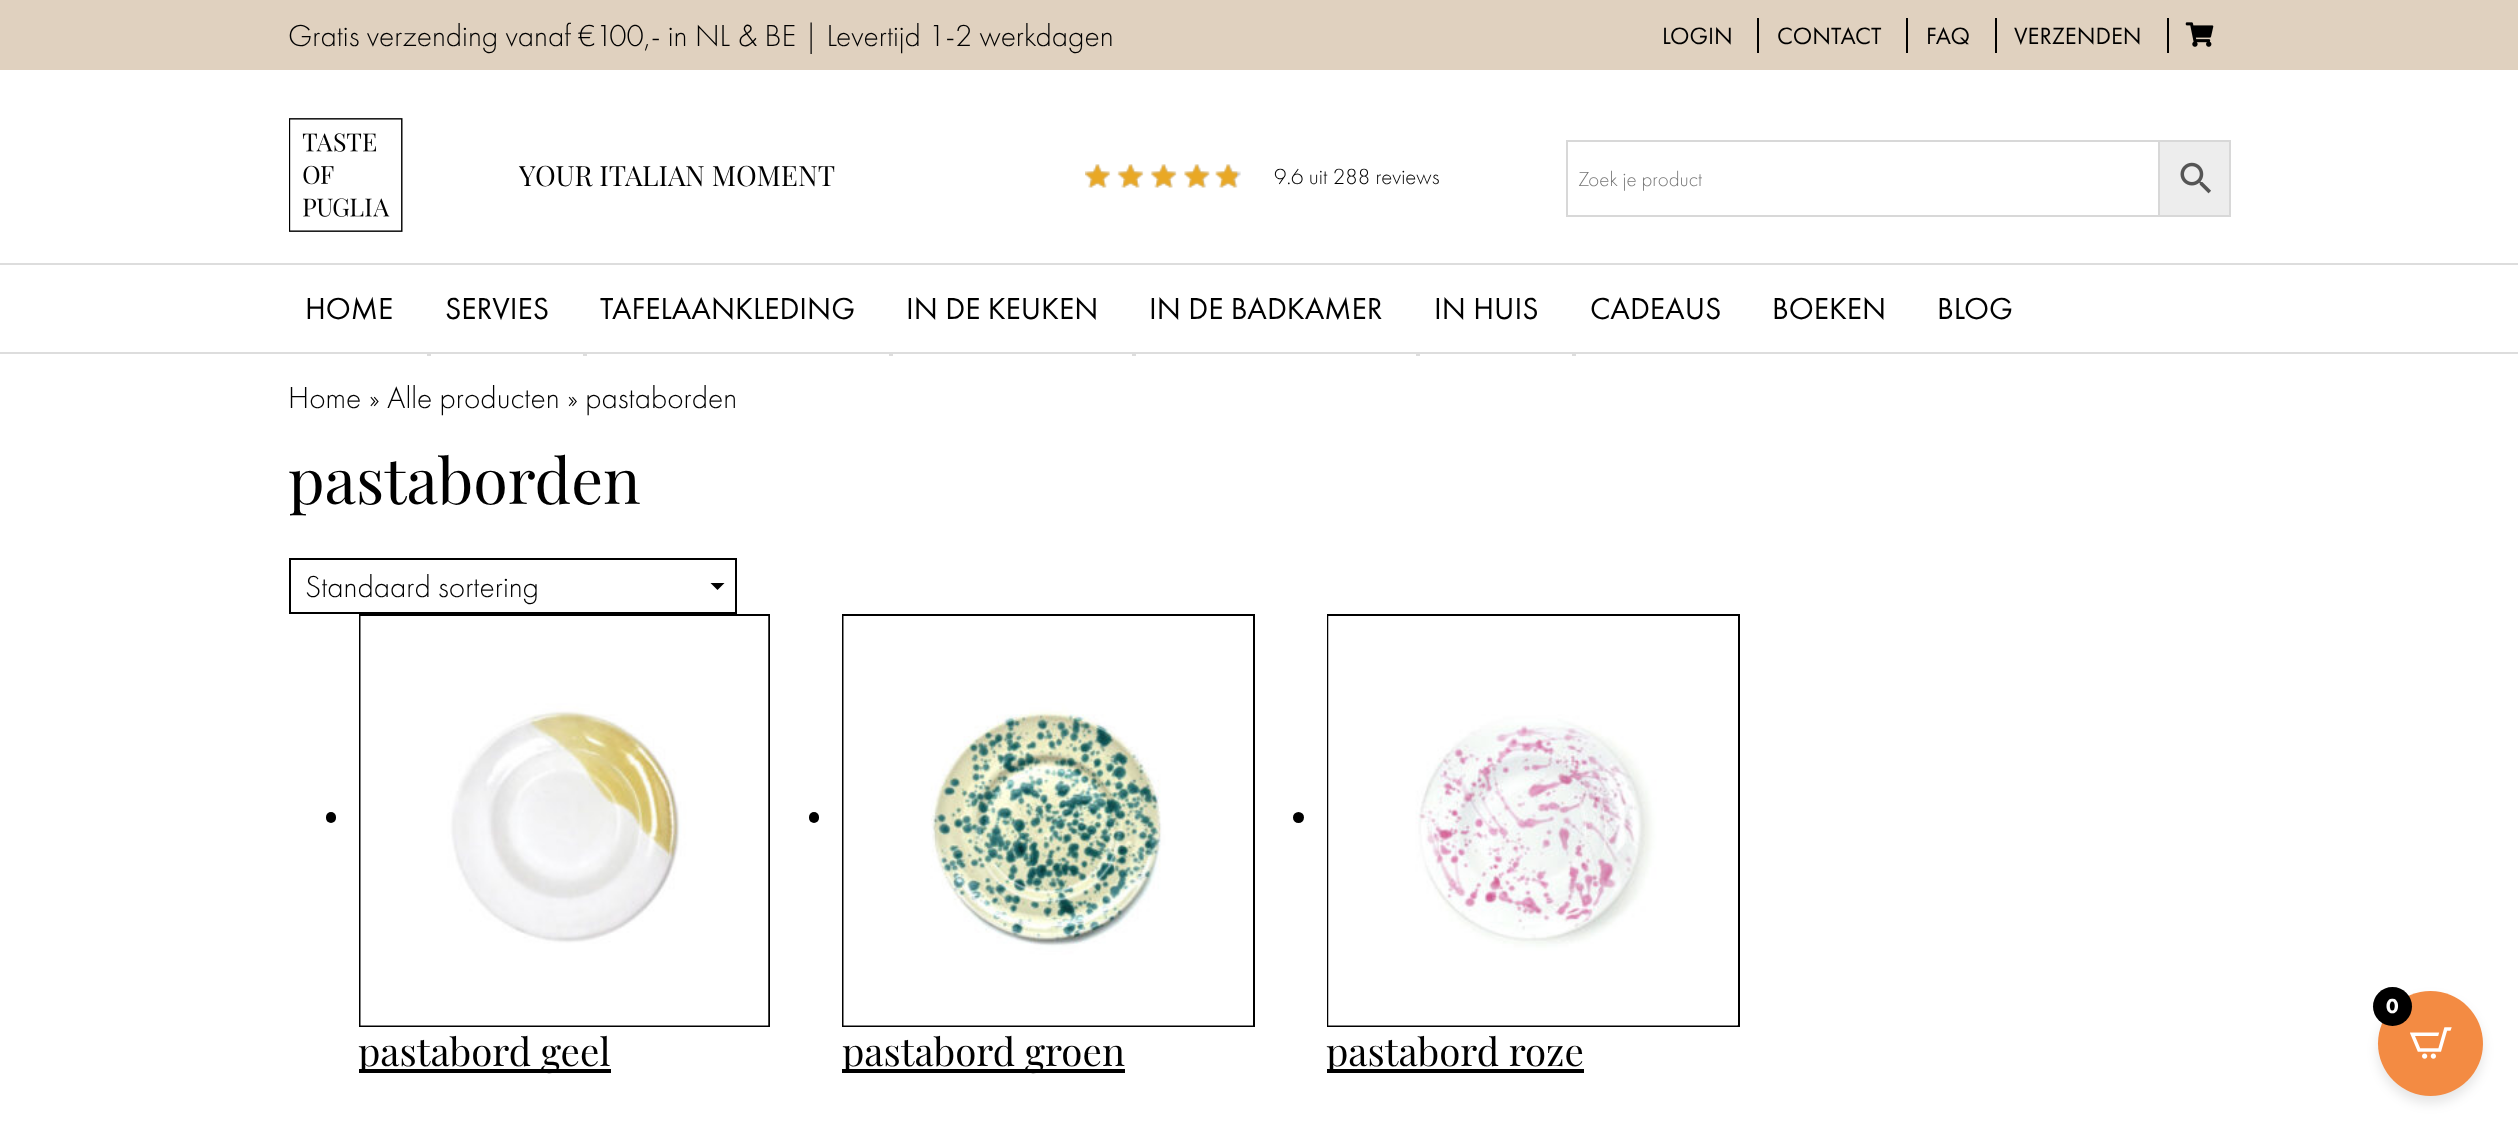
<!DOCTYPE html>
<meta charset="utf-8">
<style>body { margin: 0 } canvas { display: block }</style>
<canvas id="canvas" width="2518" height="1130"></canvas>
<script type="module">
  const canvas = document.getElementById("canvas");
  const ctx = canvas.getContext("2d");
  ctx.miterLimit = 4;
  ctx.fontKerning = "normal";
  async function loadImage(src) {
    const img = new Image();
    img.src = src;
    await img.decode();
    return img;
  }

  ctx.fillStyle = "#ffffff";
  ctx.fillRect(0, 0, 2518, 1130);
  ctx.fillStyle = "#e0d1bf";
  ctx.fillRect(0, 0, 2518, 70);
  ctx.font = "300 31.5px Futura PT";
  ctx.fillStyle = "#000000";
  ctx.fillText("Gratis verzending vanaf €100,- in NL & BE | Levertijd 1-2 werkdagen", 288, 46);
  ctx.font = "24.5px Futura PT";
  ctx.fillText("LOGIN", 1662, 44);
  ctx.fillRect(1757, 18, 2, 35);
  ctx.fillText("CONTACT", 1777, 44);
  ctx.fillRect(1906, 18, 2, 35);
  ctx.fillText("FAQ", 1926, 44);
  ctx.fillRect(1995, 18, 2, 35);
  ctx.fillText("VERZENDEN", 2014, 44);
  ctx.fillRect(2167, 18, 2, 35);
  ctx.drawImage(await loadImage("img1.png"), 2185, 22, 29, 25);
  ctx.drawImage(await loadImage("img2.png"), 289, 118, 114, 114);
  ctx.font = "28px Playfair Display";
  ctx.fillText("YOUR ITALIAN MOMENT", 519, 186);
  ctx.drawImage(await loadImage("img3.png"), 1085, 164, 156, 24);
  ctx.drawImage(await loadImage("img4.png"), 1085, 164, 153, 24);
  ctx.font = "300 22.75px Futura PT";
  ctx.fillText("9.6 uit 288 reviews", 1274, 184);
  ctx.fillStyle = "#ededed";
  ctx.beginPath();
  ctx.rect(2159, 141, 71, 75);
  ctx.fill();
  ctx.strokeStyle = "#d8d8d8";
  ctx.lineWidth = 2;
  ctx.stroke();
  ctx.strokeRect(1567, 141, 592, 75);
  ctx.font = "300 21px Futura PT";
  ctx.fillStyle = "#757575";
  ctx.fillText("Zoek je product", 1578, 186);
  ctx.drawImage(await loadImage("img5.png"), 2180, 162, 31, 32);
  ctx.fillStyle = "#dddddd";
  ctx.fillRect(0, 263, 2518, 2);
  ctx.fillRect(0, 352, 2518, 2);
  ctx.font = "31.5px Futura PT";
  ctx.fillStyle = "#000000";
  ctx.fillText("HOME", 305, 319);
  ctx.fillText("SERVIES", 445, 319);
  ctx.fillStyle = "#dddddd";
  ctx.fillRect(427, 354, 4, 2);
  ctx.fillStyle = "#000000";
  ctx.fillText("TAFELAANKLEDING", 600, 319);
  ctx.fillStyle = "#dddddd";
  ctx.fillRect(583, 354, 4, 2);
  ctx.fillStyle = "#000000";
  ctx.fillText("IN DE KEUKEN", 906, 319);
  ctx.fillStyle = "#dddddd";
  ctx.fillRect(889, 354, 4, 2);
  ctx.fillStyle = "#000000";
  ctx.fillText("IN DE BADKAMER", 1149, 319);
  ctx.fillStyle = "#dddddd";
  ctx.fillRect(1132, 354, 4, 2);
  ctx.fillStyle = "#000000";
  ctx.fillText("IN HUIS", 1434, 319);
  ctx.fillStyle = "#dddddd";
  ctx.fillRect(1416, 354, 4, 2);
  ctx.fillStyle = "#000000";
  ctx.fillText("CADEAUS", 1590, 319);
  ctx.fillStyle = "#dddddd";
  ctx.fillRect(1572, 354, 4, 2);
  ctx.fillStyle = "#000000";
  ctx.fillText("BOEKEN", 1772, 319);
  ctx.fillText("BLOG", 1937, 319);
  ctx.font = "300 31.5px Futura PT";
  ctx.fillText("Home » Alle producten » pastaborden", 288, 408);
  ctx.font = "63px Playfair Display";
  ctx.fillText("pastaborden", 288, 504);
  ctx.beginPath();
  ctx.moveTo(717.5, 590);
  ctx.lineTo(710.5, 583);
  ctx.lineTo(724.5, 583);
  ctx.closePath();
  ctx.fill();
  ctx.strokeStyle = "#000000";
  ctx.strokeRect(290, 559, 446, 54);
  ctx.font = "300 31.5px Futura PT";
  ctx.fillText("Standaard sortering", 305, 597);
  ctx.beginPath();
  ctx.roundRect(326, 812, 10, 11, 5);
  ctx.fill();
  ctx.strokeRect(360, 615, 409, 411);
  ctx.drawImage(await loadImage("img6.png"), 360, 616, 409, 410);
  ctx.fillRect(359, 1069, 252, 4);
  ctx.font = "38.5px Playfair Display";
  ctx.fillText("pastabord geel", 358, 1066);
  ctx.beginPath();
  ctx.roundRect(809, 812, 10, 11, 5);
  ctx.fill();
  ctx.strokeRect(843, 615, 411, 411);
  ctx.drawImage(await loadImage("img7.png"), 843, 616, 410, 410);
  ctx.fillRect(842, 1069, 283, 4);
  ctx.fillText("pastabord groen", 842, 1066);
  ctx.beginPath();
  ctx.arc(1298.5, 817.5, 5.5, 0, Math.PI * 2);
  ctx.fill();
  ctx.strokeRect(1328, 615, 411, 411);
  ctx.drawImage(await loadImage("img8.png"), 1328, 616, 410, 410);
  ctx.fillRect(1327, 1069, 257, 4);
  ctx.fillText("pastabord roze", 1326, 1066);
  ctx.fillStyle = "rgba(0, 0, 0, 0.1)";
  ctx.filter = "blur(6px)";
  ctx.beginPath();
  ctx.roundRect(2378, 998, 105, 105, 52.5);
  ctx.fill();
  ctx.filter = "none";
  ctx.fillStyle = "#f38b43";
  ctx.beginPath();
  ctx.arc(2430.5, 1043.5, 52.5, 0, Math.PI * 2);
  ctx.fill();
  ctx.fillStyle = "#000000";
  ctx.beginPath();
  ctx.arc(2392.5, 1006.5, 19.5, 0, Math.PI * 2);
  ctx.fill();
  ctx.font = "900 21px Futura PT";
  ctx.fillStyle = "#ffffff";
  ctx.fillText("0", 2386, 1013);
  ctx.drawImage(await loadImage("img9.png"), 2410, 1027, 42, 32);
</script>
